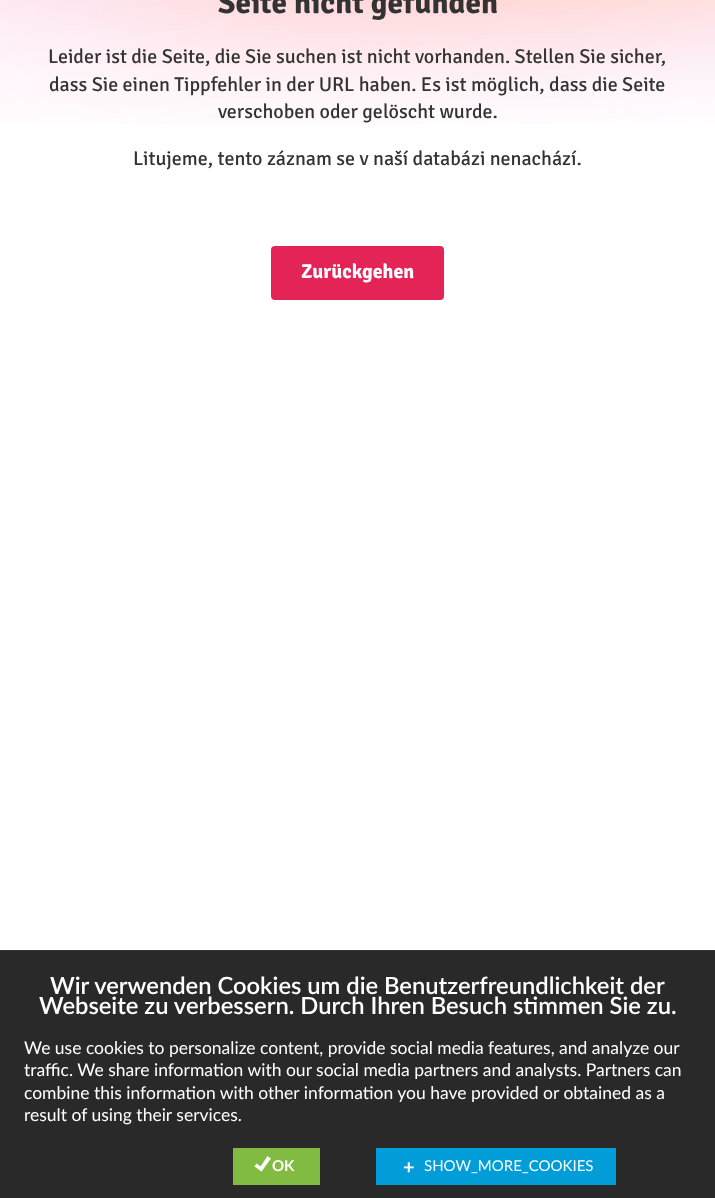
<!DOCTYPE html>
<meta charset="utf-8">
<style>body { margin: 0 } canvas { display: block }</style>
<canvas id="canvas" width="715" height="1198"></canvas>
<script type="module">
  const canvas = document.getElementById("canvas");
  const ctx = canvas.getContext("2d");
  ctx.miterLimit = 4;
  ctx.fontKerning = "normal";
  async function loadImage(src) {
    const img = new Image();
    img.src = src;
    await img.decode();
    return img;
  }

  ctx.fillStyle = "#ffffff";
  ctx.fillRect(0, 0, 715, 1198);
  ctx.drawImage(await loadImage("img1.png"), 0, 0, 715, 124);
  ctx.font = "bold 31.25px Signika";
  ctx.fillStyle = "#333333";
  ctx.fillText("Seite nicht gefunden", 218, 13);
  ctx.font = "20px Signika";
  ctx.fillText("Leider ist die Seite, die Sie suchen ist nicht vorhanden. Stellen Sie sicher,", 48, 63);
  ctx.fillText("dass Sie einen Tippfehler in der URL haben. Es ist möglich, dass die Seite", 49, 91);
  ctx.fillText("verschoben oder gelöscht wurde.", 218, 118);
  ctx.fillText("Litujeme, tento záznam se v naší databázi nenachází.", 133, 165);
  ctx.fillStyle = "#e42456";
  ctx.beginPath();
  ctx.roundRect(271, 246, 173, 54, 4);
  ctx.fill();
  ctx.font = "bold 20px Signika";
  ctx.fillStyle = "#ffffff";
  ctx.fillText("Zurückgehen", 301, 278);
  ctx.fillStyle = "#313131";
  ctx.fillRect(0, 950, 715, 1);
  ctx.fillStyle = "#292929";
  ctx.fillRect(0, 951, 715, 247);
  ctx.font = "600 23.75px Lato";
  ctx.fillStyle = "#ffffff";
  ctx.fillText("Wir verwenden Cookies um die Benutzerfreundlichkeit der", 50, 994);
  ctx.fillText("Webseite zu verbessern. Durch Ihren Besuch stimmen Sie zu.", 39, 1014);
  ctx.font = "17.5px Lato";
  ctx.fillText("We use cookies to personalize content, provide social media features, and analyze our", 24, 1054);
  ctx.fillText("traffic. We share information with our social media partners and analysts. Partners can", 24, 1076);
  ctx.fillText("combine this information with other information you have provided or obtained as a", 24, 1099);
  ctx.fillText("result of using their services.", 24, 1121);
  ctx.fillStyle = "#82bb42";
  ctx.fillRect(233, 1148, 87, 37);
  ctx.fillStyle = "#fdfdfd";
  ctx.beginPath();
  ctx.moveTo(267.5, 1156);
  ctx.lineTo(271, 1158.5);
  ctx.lineTo(261.5, 1171.5);
  ctx.lineTo(258.5, 1169.5);
  ctx.closePath();
  ctx.fill();
  ctx.beginPath();
  ctx.moveTo(256.5, 1163.5);
  ctx.lineTo(263.5, 1168.5);
  ctx.lineTo(261.5, 1171.5);
  ctx.lineTo(254.5, 1166.5);
  ctx.closePath();
  ctx.fill();
  ctx.font = "bold 15px Lato";
  ctx.fillStyle = "#ffffff";
  ctx.fillText("OK", 272, 1171);
  ctx.fillStyle = "#009dd8";
  ctx.fillRect(376, 1148, 240, 37);
  ctx.font = "bold 20px Lato";
  ctx.fillStyle = "#ffffff";
  ctx.fillText("+", 403, 1174);
  ctx.font = "15px Lato";
  ctx.fillText("SHOW_MORE_COOKIES", 424, 1171);
</script>
